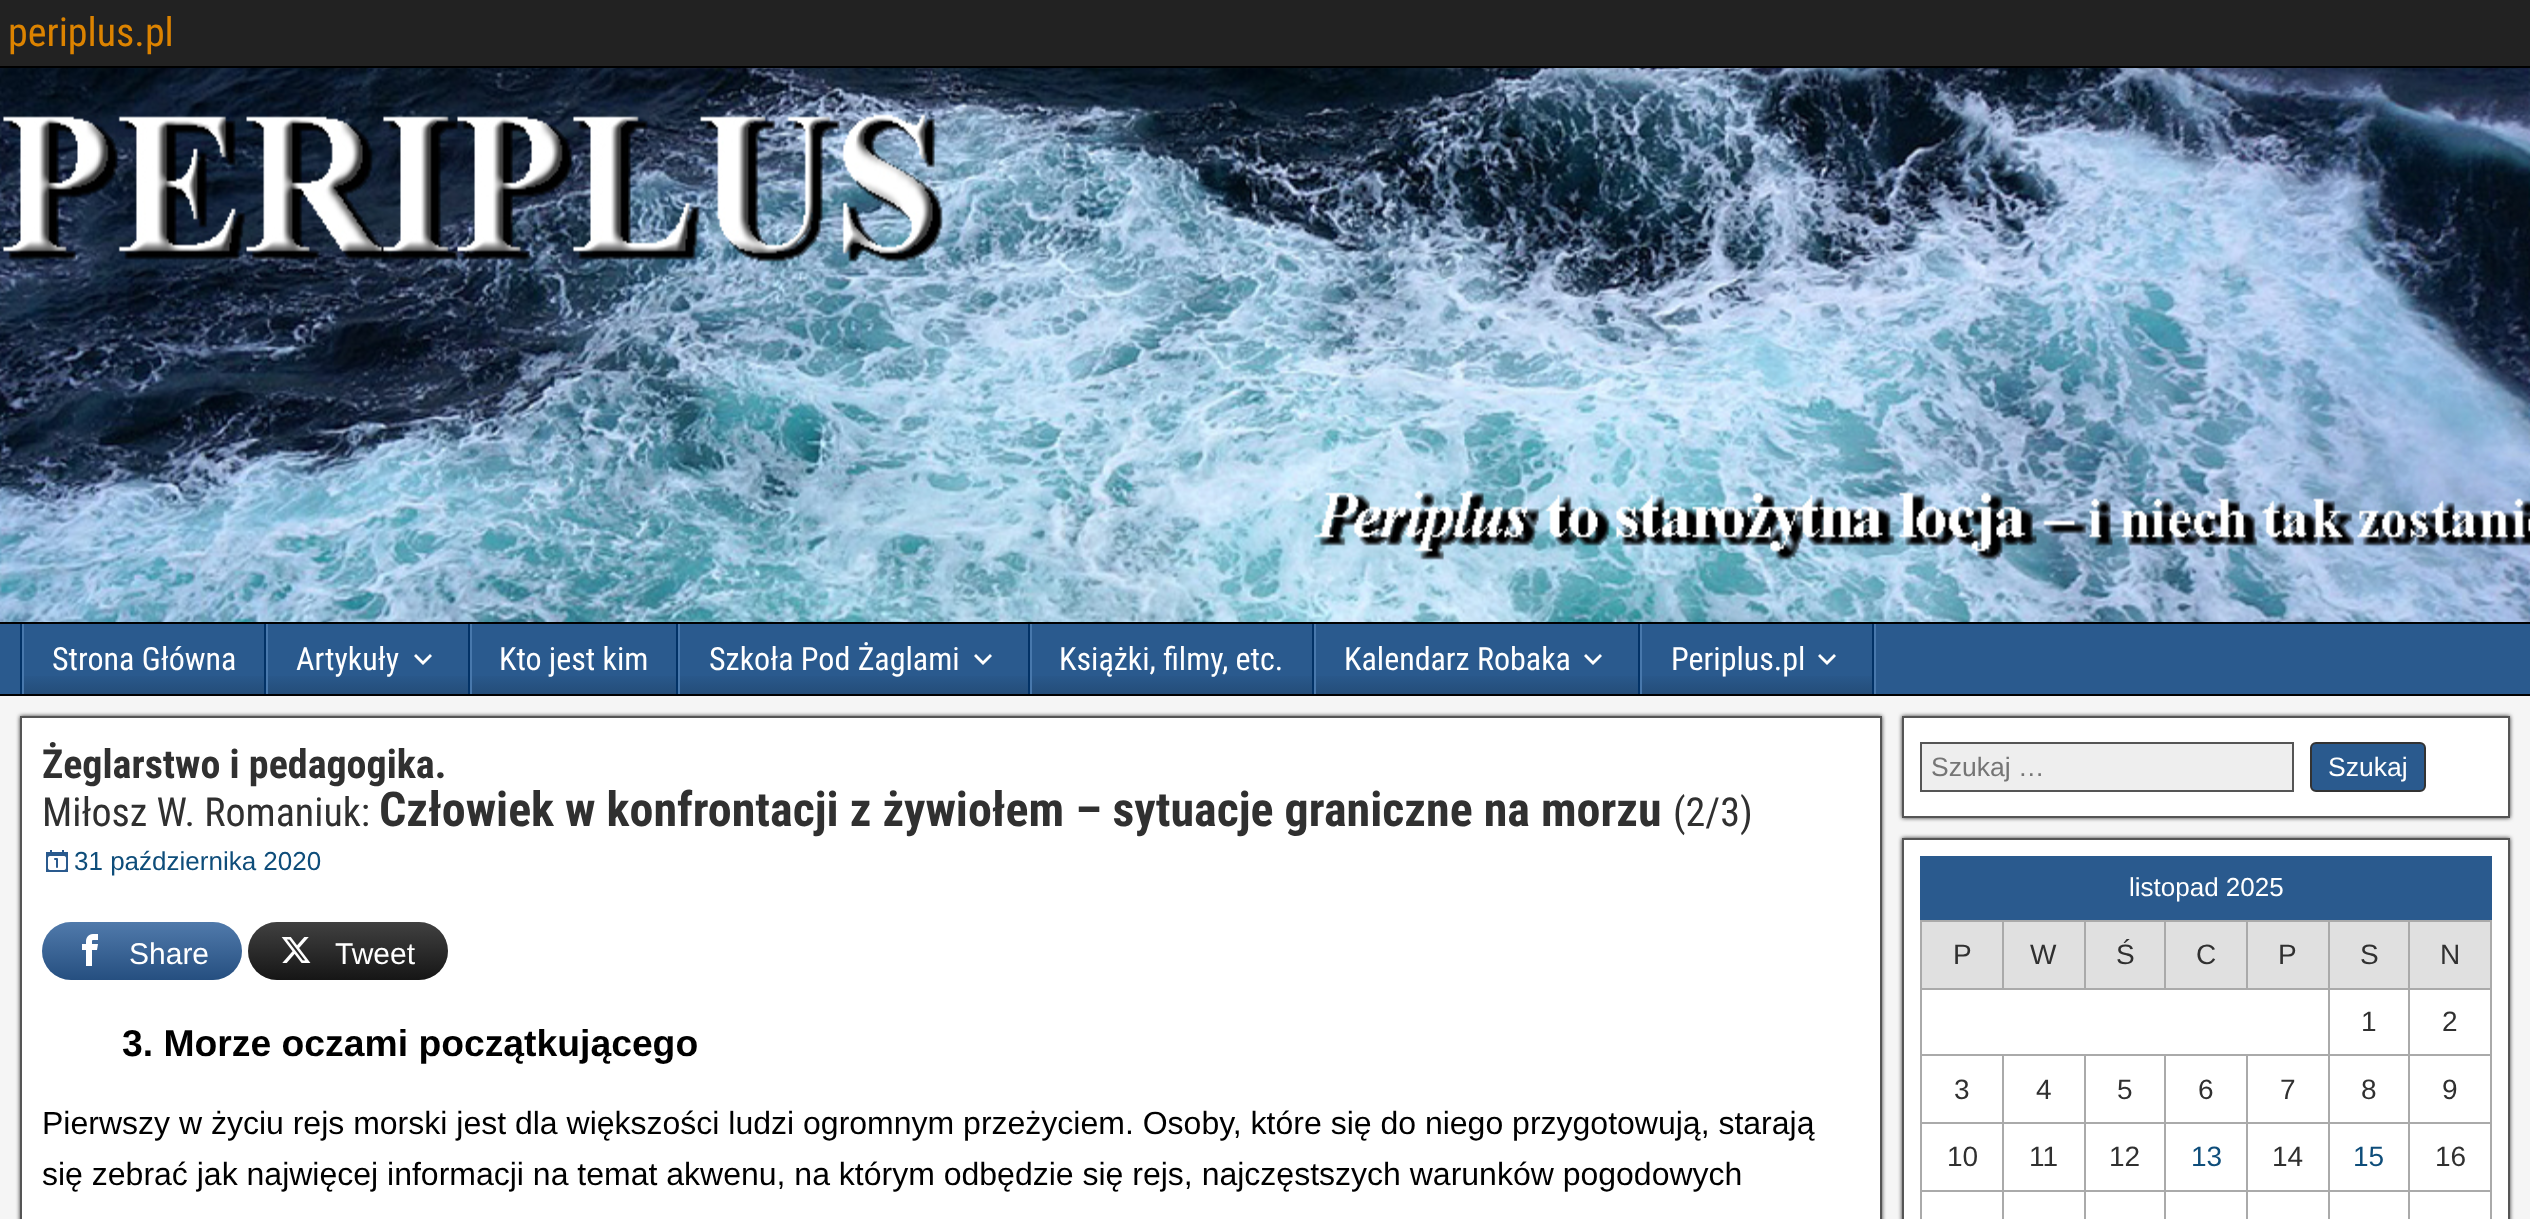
<!DOCTYPE html>
<meta charset="utf-8">
<style>body { margin: 0 } canvas { display: block }</style>
<canvas id="canvas" width="2530" height="1219"></canvas>
<script type="module">
  const canvas = document.getElementById("canvas");
  const ctx = canvas.getContext("2d");
  ctx.miterLimit = 4;
  ctx.fontKerning = "normal";
  async function loadImage(src) {
    const img = new Image();
    img.src = src;
    await img.decode();
    return img;
  }
  let gradient;

  ctx.fillStyle = "#222222";
  ctx.fillRect(0, 0, 2530, 1219);
  ctx.fillStyle = "#000000";
  ctx.fillRect(0, 66, 2530, 2);
  ctx.font = "40px Roboto Condensed";
  ctx.fillStyle = "#dc8300";
  ctx.fillText("periplus.pl", 8, 46);
  ctx.drawImage(await loadImage("img1.png"), 0, 68, 2530, 554);
  ctx.fillStyle = "#000000";
  ctx.fillRect(0, 622, 2530, 2);
  ctx.fillStyle = "#2a5a8e";
  ctx.fillRect(0, 624, 2530, 70);
  ctx.fillStyle = "#000000";
  ctx.fillRect(0, 694, 2530, 2);
  ctx.fillStyle = "#4878ac";
  ctx.fillRect(1874, 624, 2, 70);
  ctx.fillStyle = "#023266";
  ctx.fillRect(20, 624, 2, 70);
  gradient = ctx.createLinearGradient(144, 624, 144, 694);
  gradient.addColorStop(0.7, "#2a5a8e");
  gradient.addColorStop(1, "#244d79");
  ctx.fillStyle = gradient;
  ctx.fillRect(24, 676, 240, 18);
  ctx.fillStyle = "#023266";
  ctx.fillRect(264, 624, 2, 70);
  ctx.fillStyle = "#4878ac";
  ctx.fillRect(22, 624, 2, 70);
  ctx.font = "32px Roboto Condensed";
  ctx.fillStyle = "#ffffff";
  ctx.fillText("Strona Główna", 52, 670);
  gradient = ctx.createLinearGradient(368, 624, 368, 694);
  gradient.addColorStop(0.7, "#2a5a8e");
  gradient.addColorStop(1, "#244d79");
  ctx.fillStyle = gradient;
  ctx.fillRect(268, 676, 200, 18);
  ctx.fillStyle = "#023266";
  ctx.fillRect(468, 624, 2, 70);
  ctx.fillStyle = "#4878ac";
  ctx.fillRect(266, 624, 2, 70);
  ctx.fillStyle = "#ffffff";
  ctx.fillText("Artykuły", 296, 670);
  ctx.beginPath();
  ctx.moveTo(430, 654);
  ctx.lineTo(432, 656);
  ctx.lineTo(423, 665);
  ctx.lineTo(414, 656);
  ctx.lineTo(416, 654);
  ctx.lineTo(423, 661);
  ctx.closePath();
  ctx.fill();
  gradient = ctx.createLinearGradient(574, 624, 574, 694);
  gradient.addColorStop(0.7, "#2a5a8e");
  gradient.addColorStop(1, "#244d79");
  ctx.fillStyle = gradient;
  ctx.fillRect(472, 676, 204, 18);
  ctx.fillStyle = "#023266";
  ctx.fillRect(676, 624, 2, 70);
  ctx.fillStyle = "#4878ac";
  ctx.fillRect(470, 624, 2, 70);
  ctx.fillStyle = "#ffffff";
  ctx.fillText("Kto jest kim", 499, 670);
  gradient = ctx.createLinearGradient(854, 624, 854, 694);
  gradient.addColorStop(0.7, "#2a5a8e");
  gradient.addColorStop(1, "#244d79");
  ctx.fillStyle = gradient;
  ctx.fillRect(680, 676, 348, 18);
  ctx.fillStyle = "#023266";
  ctx.fillRect(1028, 624, 2, 70);
  ctx.fillStyle = "#4878ac";
  ctx.fillRect(678, 624, 2, 70);
  ctx.fillStyle = "#ffffff";
  ctx.fillText("Szkoła Pod Żaglami", 709, 670);
  ctx.beginPath();
  ctx.moveTo(990, 654);
  ctx.lineTo(992, 656);
  ctx.lineTo(983, 665);
  ctx.lineTo(974, 656);
  ctx.lineTo(976, 654);
  ctx.lineTo(983, 661);
  ctx.closePath();
  ctx.fill();
  gradient = ctx.createLinearGradient(1172, 624, 1172, 694);
  gradient.addColorStop(0.7, "#2a5a8e");
  gradient.addColorStop(1, "#244d79");
  ctx.fillStyle = gradient;
  ctx.fillRect(1032, 676, 280, 18);
  ctx.fillStyle = "#023266";
  ctx.fillRect(1312, 624, 2, 70);
  ctx.fillStyle = "#4878ac";
  ctx.fillRect(1030, 624, 2, 70);
  ctx.fillStyle = "#ffffff";
  ctx.fillText("Książki, filmy, etc.", 1059, 670);
  gradient = ctx.createLinearGradient(1477, 624, 1477, 694);
  gradient.addColorStop(0.7, "#2a5a8e");
  gradient.addColorStop(1, "#244d79");
  ctx.fillStyle = gradient;
  ctx.fillRect(1316, 676, 322, 18);
  ctx.fillStyle = "#023266";
  ctx.fillRect(1638, 624, 2, 70);
  ctx.fillStyle = "#4878ac";
  ctx.fillRect(1314, 624, 2, 70);
  ctx.fillStyle = "#ffffff";
  ctx.fillText("Kalendarz Robaka", 1344, 670);
  ctx.beginPath();
  ctx.moveTo(1600, 654);
  ctx.lineTo(1602, 656);
  ctx.lineTo(1593, 665);
  ctx.lineTo(1584, 656);
  ctx.lineTo(1586, 654);
  ctx.lineTo(1593, 661);
  ctx.closePath();
  ctx.fill();
  gradient = ctx.createLinearGradient(1757, 624, 1757, 694);
  gradient.addColorStop(0.7, "#2a5a8e");
  gradient.addColorStop(1, "#244d79");
  ctx.fillStyle = gradient;
  ctx.fillRect(1642, 676, 230, 18);
  ctx.fillStyle = "#023266";
  ctx.fillRect(1872, 624, 2, 70);
  ctx.fillStyle = "#4878ac";
  ctx.fillRect(1640, 624, 2, 70);
  ctx.fillStyle = "#ffffff";
  ctx.fillText("Periplus.pl", 1671, 670);
  ctx.beginPath();
  ctx.moveTo(1834, 654);
  ctx.lineTo(1836, 656);
  ctx.lineTo(1827, 665);
  ctx.lineTo(1818, 656);
  ctx.lineTo(1820, 654);
  ctx.lineTo(1827, 661);
  ctx.closePath();
  ctx.fill();
  ctx.fillStyle = "#f5f5f5";
  ctx.fillRect(0, 696, 2530, 523);
  ctx.fillStyle = "#333333";
  ctx.filter = "blur(2px)";
  ctx.beginPath();
  ctx.rect(20, 716, 1862, 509);
  ctx.fill();
  ctx.filter = "none";
  ctx.fillStyle = "#ffffff";
  ctx.beginPath();
  ctx.rect(21, 717, 1860, 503);
  ctx.fill();
  ctx.strokeStyle = "#555555";
  ctx.lineWidth = 2;
  ctx.stroke();
  ctx.font = "bold 40px Roboto Condensed";
  ctx.fillStyle = "#303030";
  ctx.fillText("Żeglarstwo i pedagogika.", 42, 778);
  ctx.font = "40px Roboto Condensed";
  ctx.fillText("Miłosz W. Romaniuk:", 42, 826);
  ctx.font = "bold 48px Roboto Condensed";
  ctx.fillText("Człowiek w konfrontacji z żywiołem – sytuacje graniczne na morzu", 379, 826);
  ctx.font = "40px Roboto Condensed";
  ctx.fillText("(2/3)", 1673, 826);
  ctx.drawImage(await loadImage("img2.png"), 46, 850, 22, 22);
  ctx.font = "26px Liberation Sans";
  ctx.fillStyle = "#0e4d7a";
  ctx.fillText("31 października 2020", 74, 870);
  ctx.fillStyle = "#2d5f9a";
  ctx.beginPath();
  ctx.roundRect(42, 922, 200, 58, 29);
  ctx.fill();
  gradient = ctx.createLinearGradient(142, 980, 142, 922);
  gradient.addColorStop(0, "rgba(0, 0, 0, 0.17)");
  gradient.addColorStop(1, "rgba(255, 255, 255, 0.17)");
  ctx.fillStyle = gradient;
  ctx.beginPath();
  ctx.roundRect(42, 922, 200, 58, 29);
  ctx.fill();
  ctx.drawImage(await loadImage("img3.png"), 82, 934, 16, 32);
  ctx.font = "30px Liberation Sans";
  ctx.fillStyle = "#ffffff";
  ctx.fillText("Share", 129, 964);
  ctx.fillStyle = "#1a1a1a";
  ctx.beginPath();
  ctx.roundRect(248, 922, 200, 58, 29);
  ctx.fill();
  gradient = ctx.createLinearGradient(348, 980, 348, 922);
  gradient.addColorStop(0, "rgba(0, 0, 0, 0.17)");
  gradient.addColorStop(1, "rgba(255, 255, 255, 0.17)");
  ctx.fillStyle = gradient;
  ctx.beginPath();
  ctx.roundRect(248, 922, 200, 58, 29);
  ctx.fill();
  ctx.drawImage(await loadImage("img4.png"), 281, 937, 30, 26);
  ctx.fillStyle = "#ffffff";
  ctx.fillText("Tweet", 335, 964);
  ctx.font = "bold 37.3px Arimo";
  ctx.fillStyle = "#000000";
  ctx.fillText("3. Morze oczami początkującego", 122, 1056);
  ctx.font = "32px Arimo";
  ctx.fillText("Pierwszy w życiu rejs morski jest dla większości ludzi ogromnym przeżyciem. Osoby, które się do niego przygotowują, starają", 42, 1134);
  ctx.fillText("się zebrać jak najwięcej informacji na temat akwenu, na którym odbędzie się rejs, najczęstszych warunków pogodowych", 42, 1185);
  ctx.fillStyle = "#333333";
  ctx.filter = "blur(2px)";
  ctx.beginPath();
  ctx.rect(1902, 716, 608, 102);
  ctx.fill();
  ctx.filter = "none";
  ctx.fillStyle = "#ffffff";
  ctx.beginPath();
  ctx.rect(1903, 717, 606, 100);
  ctx.fill();
  ctx.stroke();
  ctx.fillStyle = "#eeeeee";
  ctx.beginPath();
  ctx.rect(1921, 743, 372, 48);
  ctx.fill();
  ctx.stroke();
  ctx.font = "26.5px Liberation Sans";
  ctx.fillStyle = "#757575";
  ctx.fillText("Szukaj …", 1931, 776);
  ctx.fillStyle = "#2a5a8e";
  ctx.beginPath();
  ctx.roundRect(2311, 743, 114, 48, 5);
  ctx.fill();
  ctx.strokeStyle = "#333333";
  ctx.stroke();
  ctx.fillStyle = "#ffffff";
  ctx.fillText("Szukaj", 2328, 776);
  ctx.fillStyle = "#333333";
  ctx.filter = "blur(2px)";
  ctx.beginPath();
  ctx.rect(1902, 838, 608, 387);
  ctx.fill();
  ctx.filter = "none";
  ctx.fillStyle = "#ffffff";
  ctx.beginPath();
  ctx.rect(1903, 839, 606, 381);
  ctx.fill();
  ctx.strokeStyle = "#555555";
  ctx.stroke();
  ctx.fillStyle = "#2a5a8e";
  ctx.fillRect(1920, 856, 572, 64);
  ctx.font = "26px Liberation Sans";
  ctx.fillStyle = "#ffffff";
  ctx.fillText("listopad 2025", 2129, 896);
  ctx.fillStyle = "#e0e0e0";
  ctx.fillRect(1922, 922, 80, 66);
  ctx.fillStyle = "#aaaaaa";
  ctx.fillRect(2408, 920, 84, 2);
  ctx.fillRect(2408, 988, 84, 2);
  ctx.fillRect(2408, 1054, 84, 2);
  ctx.fillRect(2408, 1122, 84, 2);
  ctx.fillRect(2408, 1190, 84, 2);
  ctx.fillRect(2408, 1190, 2, 29);
  ctx.fillRect(2328, 1190, 82, 2);
  ctx.fillRect(2408, 1122, 2, 70);
  ctx.fillRect(2328, 1122, 82, 2);
  ctx.fillRect(2408, 1054, 2, 70);
  ctx.fillRect(2328, 1054, 82, 2);
  ctx.fillRect(2408, 988, 2, 68);
  ctx.fillRect(2328, 988, 82, 2);
  ctx.fillRect(2408, 920, 2, 70);
  ctx.fillRect(2328, 920, 82, 2);
  ctx.fillRect(2328, 1190, 2, 29);
  ctx.fillRect(2246, 1190, 84, 2);
  ctx.fillRect(2328, 1122, 2, 70);
  ctx.fillRect(2246, 1122, 84, 2);
  ctx.fillRect(2328, 1054, 2, 70);
  ctx.fillRect(2246, 1054, 84, 2);
  ctx.fillRect(2328, 988, 2, 68);
  ctx.fillRect(1920, 988, 410, 2);
  ctx.fillRect(2328, 920, 2, 70);
  ctx.fillRect(2246, 920, 84, 2);
  ctx.fillRect(2246, 920, 2, 70);
  ctx.fillRect(2164, 920, 84, 2);
  ctx.fillRect(2164, 920, 2, 70);
  ctx.fillRect(2084, 920, 82, 2);
  ctx.fillRect(2084, 920, 2, 70);
  ctx.fillRect(2002, 920, 84, 2);
  ctx.fillRect(2002, 920, 2, 70);
  ctx.fillRect(1920, 920, 84, 2);
  ctx.fillRect(2246, 1190, 2, 29);
  ctx.fillRect(2164, 1190, 84, 2);
  ctx.fillRect(2246, 1122, 2, 70);
  ctx.fillRect(2164, 1122, 84, 2);
  ctx.fillRect(2246, 1054, 2, 70);
  ctx.fillRect(2164, 1054, 84, 2);
  ctx.fillRect(2164, 1190, 2, 29);
  ctx.fillRect(2084, 1190, 82, 2);
  ctx.fillRect(2164, 1122, 2, 70);
  ctx.fillRect(2084, 1122, 82, 2);
  ctx.fillRect(2164, 1054, 2, 70);
  ctx.fillRect(2084, 1054, 82, 2);
  ctx.fillRect(2084, 1190, 2, 29);
  ctx.fillRect(2002, 1190, 84, 2);
  ctx.fillRect(2084, 1122, 2, 70);
  ctx.fillRect(2002, 1122, 84, 2);
  ctx.fillRect(2084, 1054, 2, 70);
  ctx.fillRect(2002, 1054, 84, 2);
  ctx.fillRect(2002, 1190, 2, 29);
  ctx.fillRect(1920, 1190, 84, 2);
  ctx.fillRect(2002, 1122, 2, 70);
  ctx.fillRect(1920, 1122, 84, 2);
  ctx.fillRect(2002, 1054, 2, 70);
  ctx.fillRect(1920, 1054, 84, 2);
  ctx.fillRect(1920, 1190, 2, 29);
  ctx.fillRect(1920, 1122, 2, 70);
  ctx.fillRect(1920, 1054, 2, 70);
  ctx.fillRect(1920, 988, 2, 68);
  ctx.fillRect(1920, 920, 2, 70);
  ctx.font = "28px Liberation Sans";
  ctx.fillStyle = "#303030";
  ctx.fillText("P", 1953, 964);
  ctx.fillStyle = "#e0e0e0";
  ctx.fillRect(2004, 922, 80, 66);
  ctx.fillStyle = "#303030";
  ctx.fillText("W", 2030, 964);
  ctx.fillStyle = "#e0e0e0";
  ctx.fillRect(2086, 922, 78, 66);
  ctx.fillStyle = "#303030";
  ctx.fillText("Ś", 2116, 964);
  ctx.fillStyle = "#e0e0e0";
  ctx.fillRect(2166, 922, 80, 66);
  ctx.fillStyle = "#303030";
  ctx.fillText("C", 2196, 964);
  ctx.fillStyle = "#e0e0e0";
  ctx.fillRect(2248, 922, 80, 66);
  ctx.fillStyle = "#303030";
  ctx.fillText("P", 2278, 964);
  ctx.fillStyle = "#e0e0e0";
  ctx.fillRect(2330, 922, 78, 66);
  ctx.fillStyle = "#303030";
  ctx.fillText("S", 2360, 964);
  ctx.fillStyle = "#e0e0e0";
  ctx.fillRect(2410, 922, 80, 66);
  ctx.fillStyle = "#aaaaaa";
  ctx.fillRect(2490, 1190, 2, 29);
  ctx.fillRect(2490, 1122, 2, 70);
  ctx.fillRect(2490, 1054, 2, 70);
  ctx.fillRect(2490, 988, 2, 68);
  ctx.fillRect(2490, 920, 2, 70);
  ctx.fillStyle = "#303030";
  ctx.fillText("N", 2440, 964);
  ctx.fillText("1", 2361, 1031);
  ctx.fillText("2", 2442, 1031);
  ctx.fillText("3", 1954, 1099);
  ctx.fillText("4", 2036, 1099);
  ctx.fillText("5", 2117, 1099);
  ctx.fillText("6", 2198, 1099);
  ctx.fillText("7", 2280, 1099);
  ctx.fillText("8", 2361, 1099);
  ctx.fillText("9", 2442, 1099);
  ctx.fillText("10", 1947, 1166);
  ctx.fillText("11", 2029, 1166);
  ctx.fillText("12", 2109, 1166);
  ctx.fillStyle = "#0e4d7a";
  ctx.fillText("13", 2191, 1166);
  ctx.fillStyle = "#303030";
  ctx.fillText("14", 2272, 1166);
  ctx.fillStyle = "#0e4d7a";
  ctx.fillText("15", 2353, 1166);
  ctx.fillStyle = "#303030";
  ctx.fillText("16", 2435, 1166);
</script>
